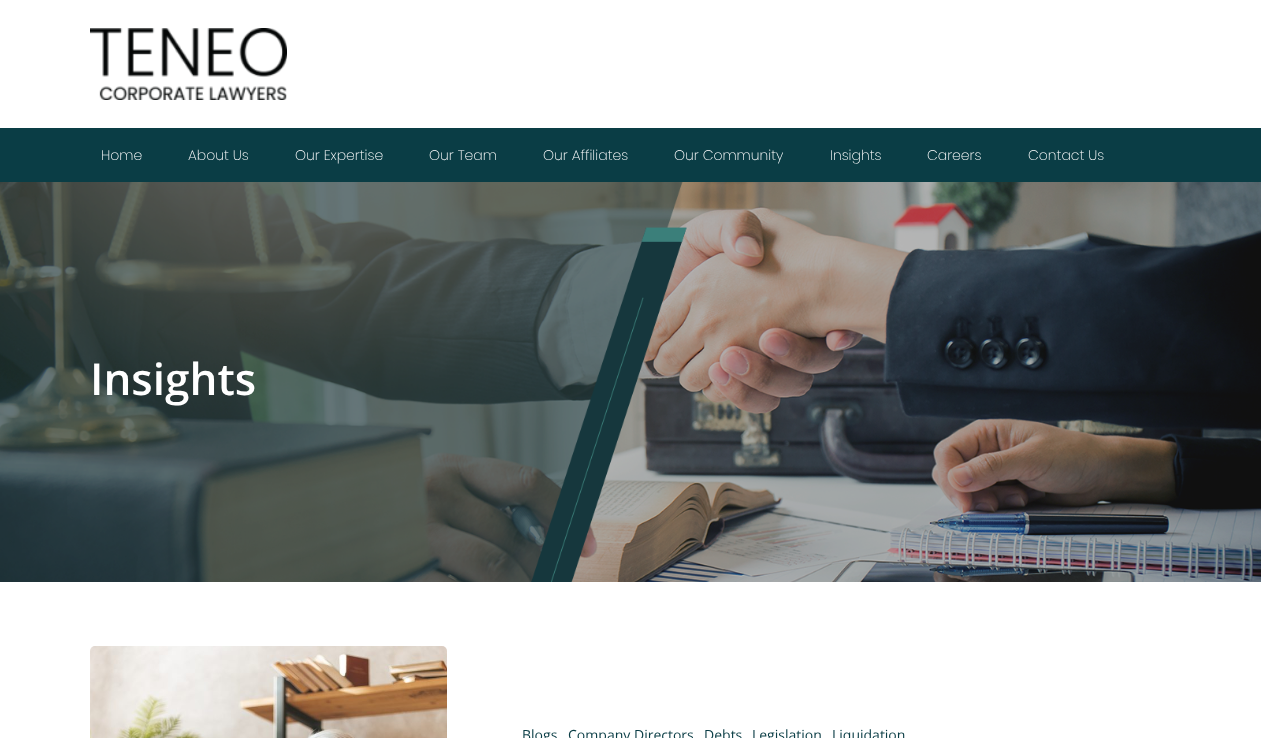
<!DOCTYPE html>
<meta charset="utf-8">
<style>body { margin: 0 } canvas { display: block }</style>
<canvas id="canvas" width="1261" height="738"></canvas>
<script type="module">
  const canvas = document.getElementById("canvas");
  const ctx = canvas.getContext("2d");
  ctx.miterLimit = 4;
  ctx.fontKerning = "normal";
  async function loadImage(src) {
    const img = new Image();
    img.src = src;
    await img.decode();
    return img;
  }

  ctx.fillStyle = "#ffffff";
  ctx.fillRect(0, 0, 1261, 738);
  ctx.drawImage(await loadImage("img1.png"), 90, 28, 197, 72);
  ctx.fillStyle = "#0a3d45";
  ctx.fillRect(0, 128, 1261, 54);
  ctx.font = "200 14px Poppins";
  ctx.fillStyle = "#ffffff";
  ctx.fillText("Home", 101, 160);
  ctx.fillText("About Us", 188, 160);
  ctx.fillText("Our Expertise", 295, 160);
  ctx.fillText("Our Team", 429, 160);
  ctx.fillText("Our Affiliates", 543, 160);
  ctx.fillText("Our Community", 674, 160);
  ctx.fillText("Insights", 830, 160);
  ctx.fillText("Careers", 927, 160);
  ctx.fillText("Contact Us", 1028, 160);
  ctx.drawImage(await loadImage("img2.png"), 0, 182, 1261, 400);
  ctx.font = "600 44px Open Sans";
  ctx.fillText("Insights", 90, 395);
  ctx.drawImage(await loadImage("img3.png"), 90, 646, 357, 92);
  ctx.font = "14px Open Sans";
  ctx.fillStyle = "#0a3d45";
  ctx.fillText("Blogs", 522, 740);
  ctx.fillText("Company Directors", 568, 740);
  ctx.fillText("Debts", 704, 740);
  ctx.fillText("Legislation", 752, 740);
  ctx.fillText("Liquidation", 832, 740);
</script>
